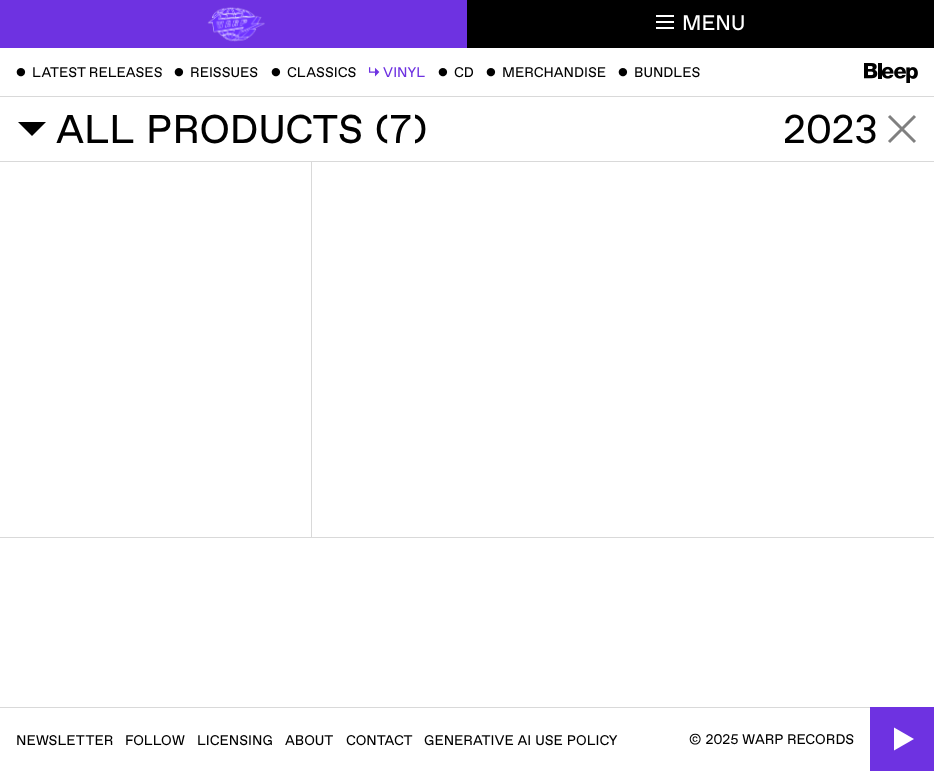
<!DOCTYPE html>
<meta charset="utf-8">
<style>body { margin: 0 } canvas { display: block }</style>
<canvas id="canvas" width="934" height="771"></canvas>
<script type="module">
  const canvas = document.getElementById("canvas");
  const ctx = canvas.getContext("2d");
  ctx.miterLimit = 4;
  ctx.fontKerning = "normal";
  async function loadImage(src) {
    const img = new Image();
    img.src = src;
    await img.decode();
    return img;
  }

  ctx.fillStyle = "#ffffff";
  ctx.fillRect(0, 0, 934, 771);
  ctx.strokeStyle = "#d9d9d9";
  ctx.strokeRect(-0.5, 161.5, 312, 376);
  ctx.strokeRect(-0.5, 161.5, 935, 376);
  ctx.strokeRect(-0.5, 47.5, 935, 490);
  ctx.fillStyle = "#000000";
  ctx.fillRect(467, 0, 467, 48);
  ctx.fillStyle = "#6e32e1";
  ctx.fillRect(0, 0, 467, 48);
  ctx.drawImage(await loadImage("img1.png"), 207, 7, 58, 35);
  ctx.fillStyle = "#ffffff";
  ctx.fillRect(656, 15, 18, 2);
  ctx.fillRect(656, 21, 18, 2);
  ctx.fillRect(656, 27, 18, 2);
  ctx.font = "21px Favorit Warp";
  ctx.fillText("MENU", 682, 30);
  ctx.fillStyle = "#d9d9d9";
  ctx.fillRect(0, 96, 934, 1);
  ctx.font = "14px Favorit Warp";
  ctx.fillStyle = "#000000";
  ctx.fillText("ˇ", 16, 77);
  ctx.fillText("LATEST RELEASES", 32, 77);
  ctx.fillText("ˇ", 174, 77);
  ctx.fillText("REISSUES", 190, 77);
  ctx.fillText("ˇ", 271, 77);
  ctx.fillText("CLASSICS", 287, 77);
  ctx.fillStyle = "#6e32e1";
  ctx.fillText("↳ VINYL", 368, 77);
  ctx.fillStyle = "#000000";
  ctx.fillText("ˇ", 438, 77);
  ctx.fillText("CD", 454, 77);
  ctx.fillText("ˇ", 486, 77);
  ctx.fillText("MERCHANDISE", 502, 77);
  ctx.fillText("ˇ", 618, 77);
  ctx.fillText("BUNDLES", 634, 77);
  ctx.drawImage(await loadImage("img2.png"), 864, 63, 54, 20);
  ctx.beginPath();
  ctx.moveTo(32, 136);
  ctx.lineTo(46, 122);
  ctx.lineTo(18, 122);
  ctx.closePath();
  ctx.fill();
  ctx.font = "40px Favorit Warp";
  ctx.fillText("ALL PRODUCTS (", 56, 143);
  ctx.fillText("7", 390, 143);
  ctx.fillText(")", 413, 143);
  ctx.fillText("2023", 783, 143);
  ctx.beginPath();
  ctx.moveTo(889, 116);
  ctx.lineTo(915, 142);
  ctx.moveTo(915, 116);
  ctx.lineTo(889, 142);
  ctx.strokeStyle = "#808080";
  ctx.lineWidth = 3;
  ctx.stroke();
  ctx.fillStyle = "#d9d9d9";
  ctx.fillRect(0, 707, 870, 1);
  ctx.font = "14px Favorit Warp";
  ctx.fillStyle = "#000000";
  ctx.fillText("NEWSLETTER", 16, 745);
  ctx.fillText("FOLLOW", 125, 745);
  ctx.fillText("LICENSING", 197, 745);
  ctx.fillText("ABOUT", 285, 745);
  ctx.fillText("CONTACT", 346, 745);
  ctx.fillText("GENERATIVE AI USE POLICY", 424, 745);
  ctx.fillText("© 2025 WARP RECORDS", 689, 744);
  ctx.fillStyle = "#6e32e1";
  ctx.fillRect(870, 707, 64, 64);
  ctx.fillStyle = "#ffffff";
  ctx.beginPath();
  ctx.moveTo(914, 739);
  ctx.lineTo(894, 750.5);
  ctx.lineTo(894, 727.5);
  ctx.closePath();
  ctx.fill();
</script>
